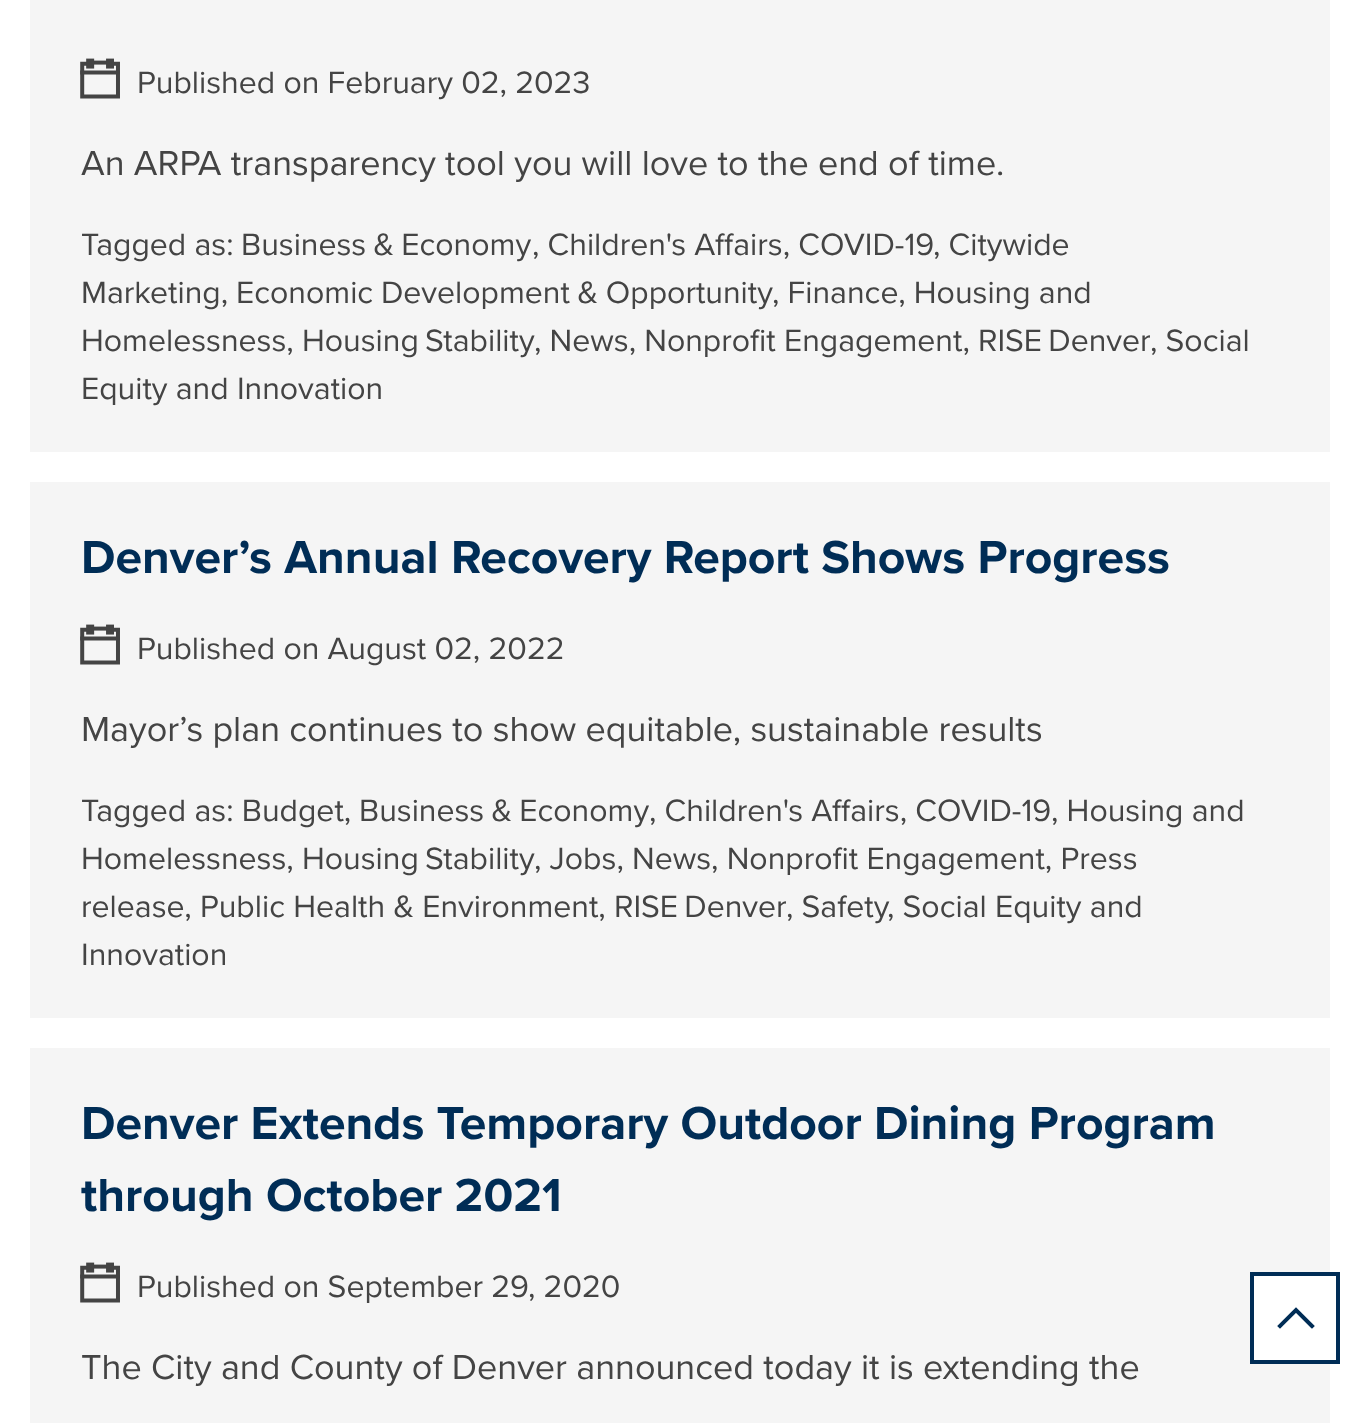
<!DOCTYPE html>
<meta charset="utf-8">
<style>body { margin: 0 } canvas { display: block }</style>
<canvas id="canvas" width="1360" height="1423"></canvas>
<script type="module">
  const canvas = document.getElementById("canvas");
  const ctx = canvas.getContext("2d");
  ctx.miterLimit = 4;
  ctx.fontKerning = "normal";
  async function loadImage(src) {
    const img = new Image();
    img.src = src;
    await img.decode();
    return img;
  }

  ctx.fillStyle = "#ffffff";
  ctx.fillRect(0, 0, 1360, 1423);
  ctx.fillStyle = "#f5f5f5";
  ctx.fillRect(30, 0, 1300, 452);
  ctx.drawImage(await loadImage("img1.png"), 80, 58, 40, 41);
  ctx.font = "32px Proxima Nova";
  ctx.fillStyle = "#444444";
  ctx.fillText("Published on February 02, 2023", 137, 93);
  ctx.font = "36px Proxima Nova";
  ctx.fillText("An ARPA transparency tool you will love to the end of time.", 81, 175);
  ctx.font = "32px Proxima Nova";
  ctx.fillText("Tagged as:", 81, 255);
  ctx.wordSpacing = "-1px";
  ctx.fillText("Business & Economy", 241, 255);
  ctx.wordSpacing = "0px";
  ctx.fillText(", Children's Affairs, COVID-19", 532, 255);
  ctx.fillText(", Citywide", 933, 255);
  ctx.fillText("Marketing,", 81, 303);
  ctx.wordSpacing = "-0.5px";
  ctx.fillText("Economic Development & Opportunity", 236, 303);
  ctx.wordSpacing = "0px";
  ctx.fillText(", Finance, Housing and", 772, 303);
  ctx.fillText("Homelessness,", 81, 351);
  ctx.wordSpacing = "-2px";
  ctx.fillText("Housing Stability", 302, 351);
  ctx.wordSpacing = "0px";
  ctx.fillText(", News, Nonprofit Engagement,", 534, 351);
  ctx.wordSpacing = "-2px";
  ctx.fillText("RISE Denver", 978, 351);
  ctx.wordSpacing = "0px";
  ctx.fillText(", Social", 1150, 351);
  ctx.fillText("Equity and Innovation", 81, 399);
  ctx.fillStyle = "#f5f5f5";
  ctx.fillRect(30, 482, 1300, 536);
  ctx.font = "bold 48px Proxima Nova";
  ctx.fillStyle = "#002d56";
  ctx.fillText("Denver’s Annual Recovery Report Shows Progress", 81, 573);
  ctx.drawImage(await loadImage("img1.png"), 80, 624, 40, 41);
  ctx.font = "32px Proxima Nova";
  ctx.fillStyle = "#444444";
  ctx.fillText("Published on August 02, 2022", 137, 659);
  ctx.font = "36px Proxima Nova";
  ctx.fillText("Mayor’s plan continues to show equitable, sustainable results", 81, 741);
  ctx.font = "32px Proxima Nova";
  ctx.fillText("Tagged as: Budget,", 81, 821);
  ctx.wordSpacing = "-1px";
  ctx.fillText("Business & Economy", 359, 821);
  ctx.wordSpacing = "0px";
  ctx.fillText(", Children's Affairs, COVID-19", 649, 821);
  ctx.fillText(", Housing and", 1051, 821);
  ctx.fillText("Homelessness,", 81, 869);
  ctx.wordSpacing = "-2px";
  ctx.fillText("Housing Stability", 302, 869);
  ctx.wordSpacing = "0px";
  ctx.fillText(", Jobs, News, Nonprofit Engagement, Press", 534, 869);
  ctx.fillText("release, Public Health & Environment,", 81, 917);
  ctx.wordSpacing = "-2px";
  ctx.fillText("RISE Denver", 614, 917);
  ctx.wordSpacing = "0px";
  ctx.fillText(", Safety", 786, 917);
  ctx.fillText(", Social Equity and", 887, 917);
  ctx.fillText("Innovation", 81, 965);
  ctx.fillStyle = "#f5f5f5";
  ctx.fillRect(30, 1048, 1300, 375);
  ctx.font = "bold 48px Proxima Nova";
  ctx.fillStyle = "#002d56";
  ctx.fillText("Denver Extends Temporary Outdoor Dining Program", 81, 1139);
  ctx.fillText("through October 2021", 81, 1211);
  ctx.drawImage(await loadImage("img1.png"), 80, 1262, 40, 41);
  ctx.font = "32px Proxima Nova";
  ctx.fillStyle = "#444444";
  ctx.fillText("Published on September 29, 2020", 137, 1297);
  ctx.font = "36px Proxima Nova";
  ctx.fillText("The City and County of Denver announced today it is extending the", 81, 1379);
  ctx.fillStyle = "#ffffff";
  ctx.fillRect(1254, 1276, 76, 84);
  ctx.strokeStyle = "#002d56";
  ctx.lineWidth = 4;
  ctx.strokeRect(1252, 1274, 86, 88);
  ctx.drawImage(await loadImage("img2.png"), 1277, 1307, 38, 22);
</script>
